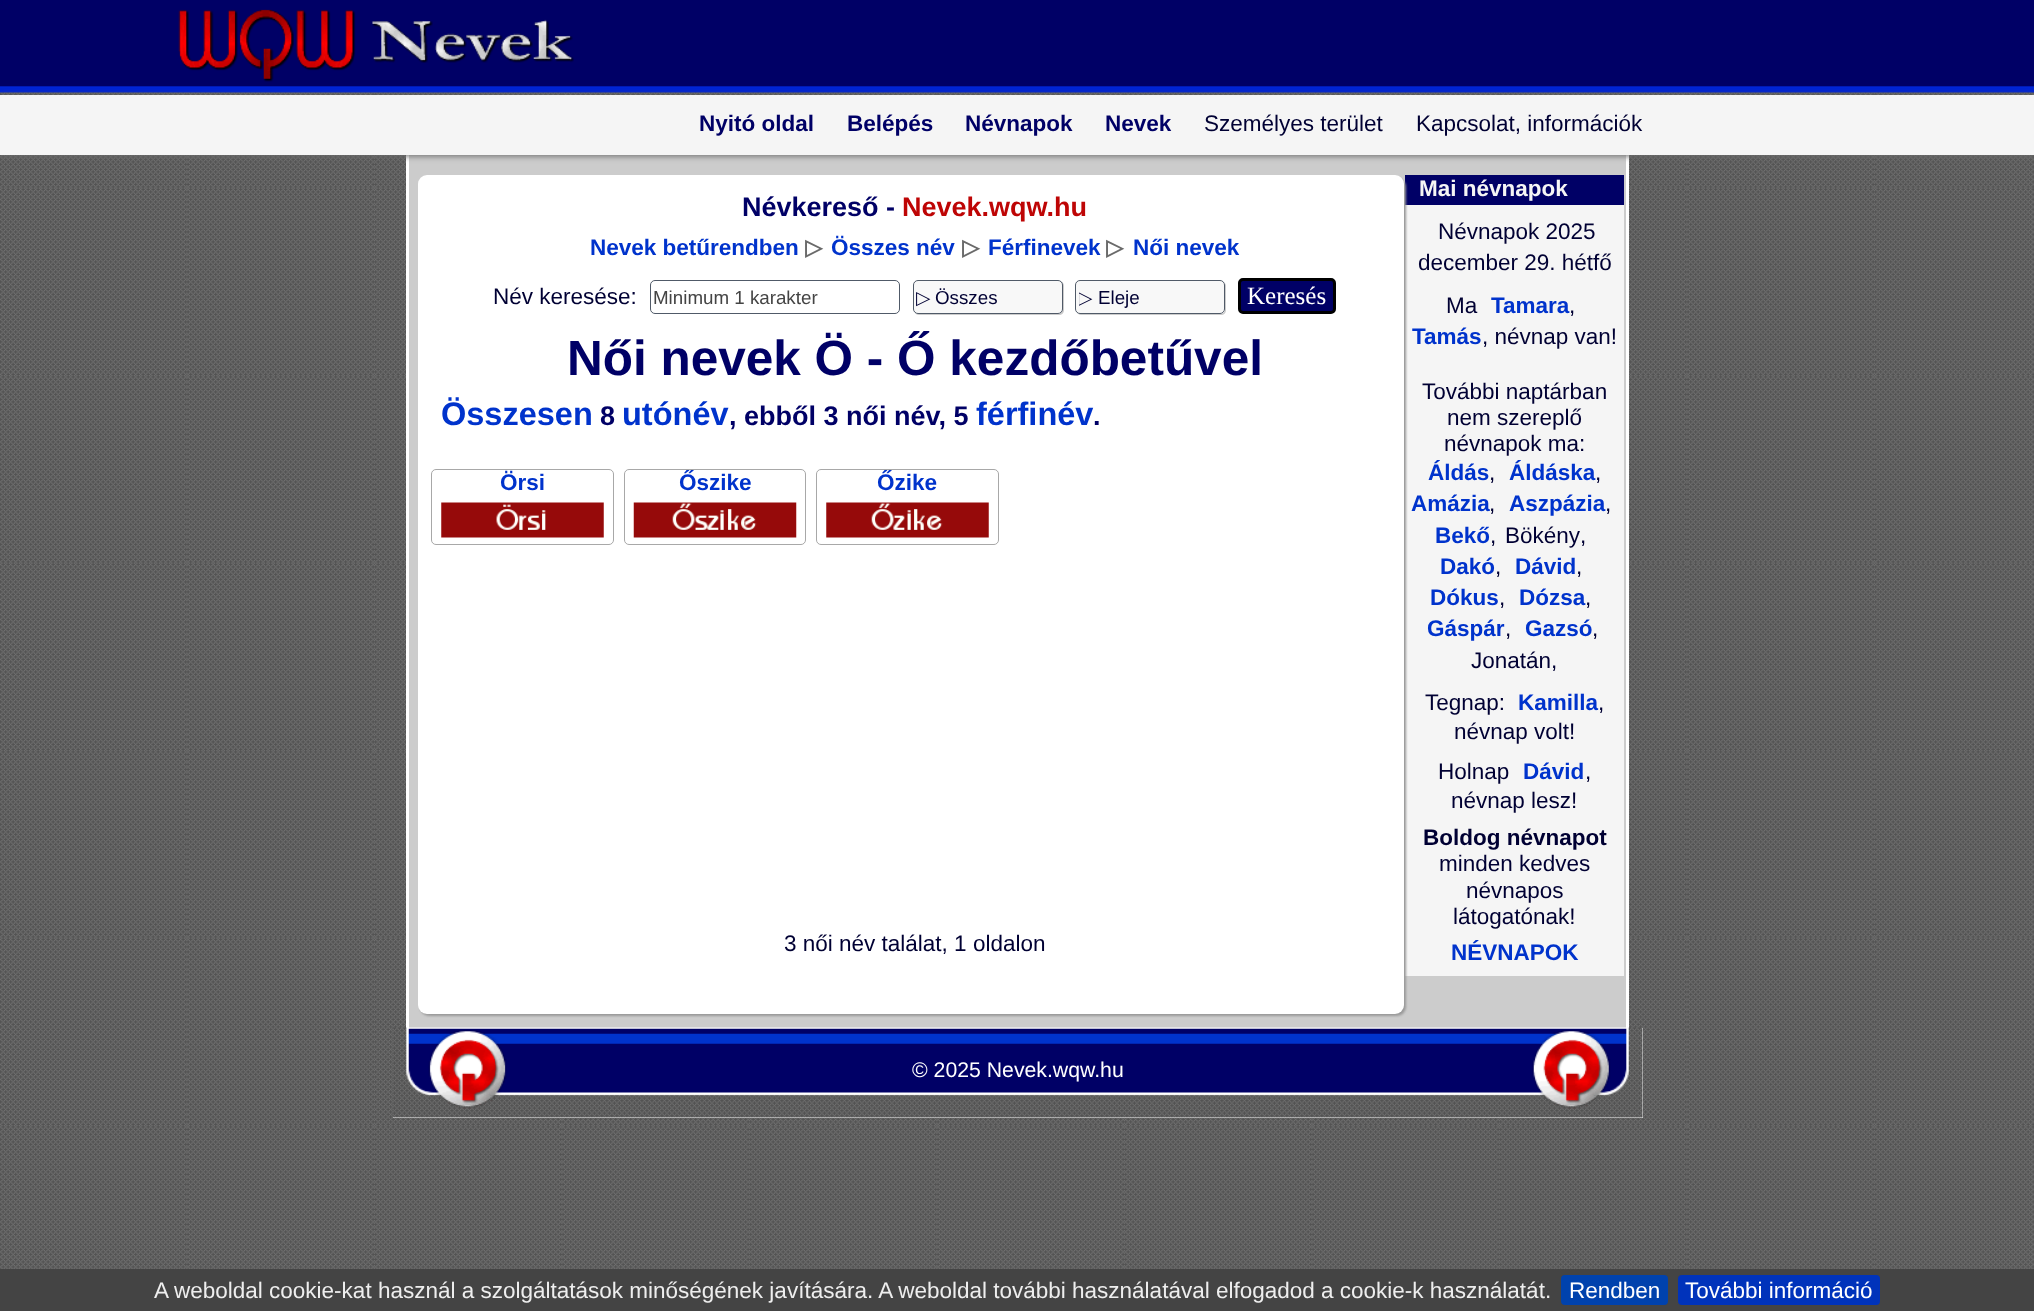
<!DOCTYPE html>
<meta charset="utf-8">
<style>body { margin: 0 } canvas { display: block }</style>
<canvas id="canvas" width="2034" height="1311"></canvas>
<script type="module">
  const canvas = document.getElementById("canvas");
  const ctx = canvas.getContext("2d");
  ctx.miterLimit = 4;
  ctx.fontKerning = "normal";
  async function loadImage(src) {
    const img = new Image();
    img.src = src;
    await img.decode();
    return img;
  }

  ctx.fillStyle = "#000066";
  ctx.fillRect(0, 0, 2034, 1311);
  ctx.drawImage(await loadImage("img1.png"), 0, 86, 2034, 1183);
  ctx.drawImage(await loadImage("img2.png"), 178, 9, 396, 73);
  ctx.fillStyle = "#cccccc";
  ctx.fillRect(409, 155, 1217, 873);
  ctx.fillStyle = "#ffffff";
  ctx.fillRect(1626, 155, 3, 873);
  ctx.fillRect(406, 155, 3, 873);
  ctx.fillStyle = "#6a6a6a";
  ctx.filter = "blur(3px)";
  ctx.beginPath();
  ctx.rect(0, 96, 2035, 60);
  ctx.fill();
  ctx.filter = "none";
  ctx.fillStyle = "#f5f5f5";
  ctx.fillRect(0, 95, 2034, 60);
  ctx.font = "bold 22.5px Liberation Sans";
  ctx.fillStyle = "#000066";
  ctx.fillText("Nyitó oldal", 699, 131);
  ctx.fillText("Belépés", 847, 131);
  ctx.fillText("Névnapok", 965, 131);
  ctx.fillText("Nevek", 1105, 131);
  ctx.font = "22.5px Liberation Sans";
  ctx.fillStyle = "#000033";
  ctx.fillText("Személyes terület", 1204, 131);
  ctx.fillText("Kapcsolat, információk", 1416, 131);
  ctx.fillStyle = "#000066";
  ctx.fillRect(1405, 175, 219, 30);
  ctx.fillStyle = "#f5f5f5";
  ctx.fillRect(1405, 205, 219, 771);
  ctx.fillStyle = "#999999";
  ctx.filter = "blur(1px)";
  ctx.beginPath();
  ctx.roundRect(420, 178, 986, 838, 9);
  ctx.fill();
  ctx.filter = "none";
  ctx.fillStyle = "#ffffff";
  ctx.beginPath();
  ctx.roundRect(418, 175, 986, 839, 9);
  ctx.fill();
  ctx.font = "bold 27px Liberation Sans";
  ctx.fillStyle = "#000066";
  ctx.fillText("Névkereső -", 742, 216);
  ctx.fillStyle = "#be0505";
  ctx.fillText("Nevek.wqw.hu", 902, 216);
  ctx.font = "bold 22.5px Liberation Sans";
  ctx.fillStyle = "#0033cc";
  ctx.fillText("Nevek betűrendben", 590, 255);
  ctx.font = "bold 22.5px DejaVu Sans";
  ctx.fillStyle = "#6a6a6a";
  ctx.fillText("▷", 805, 255);
  ctx.font = "bold 22.5px Liberation Sans";
  ctx.fillStyle = "#0033cc";
  ctx.fillText("Összes név", 831, 255);
  ctx.font = "bold 22.5px DejaVu Sans";
  ctx.fillStyle = "#6a6a6a";
  ctx.fillText("▷", 962, 255);
  ctx.font = "bold 22.5px Liberation Sans";
  ctx.fillStyle = "#0033cc";
  ctx.fillText("Férfinevek", 988, 255);
  ctx.font = "bold 22.5px DejaVu Sans";
  ctx.fillStyle = "#6a6a6a";
  ctx.fillText("▷", 1106, 255);
  ctx.font = "bold 22.5px Liberation Sans";
  ctx.fillStyle = "#0033cc";
  ctx.fillText("Női nevek", 1133, 255);
  ctx.font = "22.5px Liberation Sans";
  ctx.fillStyle = "#000033";
  ctx.fillText("Név keresése:", 493, 304);
  ctx.beginPath();
  ctx.roundRect(650.5, 280.5, 249, 33, 4.5);
  ctx.strokeStyle = "#505a68";
  ctx.stroke();
  ctx.font = "18.75px Liberation Sans";
  ctx.fillStyle = "#444444";
  ctx.fillText("Minimum 1 karakter", 653, 304);
  ctx.fillStyle = "#cccccc";
  ctx.beginPath();
  ctx.moveTo(915, 313);
  ctx.bezierCurveTo(916, 314, 917, 315, 919, 315);
  ctx.lineTo(1059, 315);
  ctx.bezierCurveTo(1062, 315, 1064, 313, 1064, 310);
  ctx.lineTo(1064, 286);
  ctx.bezierCurveTo(1064, 284, 1063, 282, 1061, 281);
  ctx.bezierCurveTo(1062, 282, 1062, 284, 1062, 285);
  ctx.lineTo(1062, 309);
  ctx.bezierCurveTo(1062, 312, 1060, 314, 1058, 314);
  ctx.lineTo(918, 314);
  ctx.closePath();
  ctx.fill();
  ctx.fillStyle = "#f8f8f8";
  ctx.beginPath();
  ctx.roundRect(913.5, 280.5, 149, 33, 4.5);
  ctx.fill();
  ctx.stroke();
  ctx.save();
  ctx.beginPath();
  ctx.rect(916, 286, 143, 22);
  ctx.clip();
  ctx.font = "18.75px DejaVu Sans";
  ctx.fillStyle = "#000033";
  ctx.fillText("▷", 916, 304);
  ctx.restore();
  ctx.fillStyle = "#000033";
  ctx.fillText("Összes", 935, 304);
  ctx.fillStyle = "#cccccc";
  ctx.beginPath();
  ctx.moveTo(1077, 312);
  ctx.bezierCurveTo(1078, 314, 1079, 315, 1081, 315);
  ctx.lineTo(1221, 315);
  ctx.bezierCurveTo(1224, 315, 1226, 313, 1226, 310);
  ctx.lineTo(1226, 286);
  ctx.bezierCurveTo(1226, 284, 1225, 283, 1224, 282);
  ctx.bezierCurveTo(1225, 283, 1225, 284, 1225, 285);
  ctx.lineTo(1225, 309);
  ctx.bezierCurveTo(1225, 312, 1223, 314, 1220, 314);
  ctx.lineTo(1080, 314);
  ctx.bezierCurveTo(1079, 314, 1078, 313, 1077, 312);
  ctx.closePath();
  ctx.fill();
  ctx.fillStyle = "#f8f8f8";
  ctx.beginPath();
  ctx.roundRect(1075.5, 280.5, 149, 33, 4.5);
  ctx.fill();
  ctx.stroke();
  ctx.save();
  ctx.beginPath();
  ctx.rect(1079, 286, 142, 22);
  ctx.clip();
  ctx.font = "18.75px DejaVu Sans";
  ctx.fillStyle = "#000033";
  ctx.fillText("▷", 1078, 304);
  ctx.restore();
  ctx.fillStyle = "#000033";
  ctx.fillText("Eleje", 1098, 304);
  ctx.fillStyle = "#000066";
  ctx.beginPath();
  ctx.roundRect(1239.5, 279.5, 95, 33, 3.5);
  ctx.fill();
  ctx.strokeStyle = "#000000";
  ctx.lineWidth = 3;
  ctx.stroke();
  ctx.font = "25px Liberation Serif";
  ctx.fillStyle = "#ffffff";
  ctx.fillText("Keresés", 1247, 304);
  ctx.font = "bold 49.5px Liberation Sans";
  ctx.fillStyle = "#000066";
  ctx.fillText("Női nevek Ö - Ő kezdőbetűvel", 567, 375);
  ctx.font = "bold 32.5px Liberation Sans";
  ctx.fillStyle = "#0033cc";
  ctx.fillText("Összesen", 441, 425);
  ctx.font = "bold 27px Liberation Sans";
  ctx.fillStyle = "#000066";
  ctx.fillText("8", 600, 425);
  ctx.font = "bold 32.5px Liberation Sans";
  ctx.fillStyle = "#0033cc";
  ctx.fillText("utónév", 622, 425);
  ctx.font = "bold 27px Liberation Sans";
  ctx.fillStyle = "#000066";
  ctx.fillText(", ebből 3 női név, 5", 729, 425);
  ctx.font = "bold 32.5px Liberation Sans";
  ctx.fillStyle = "#0033cc";
  ctx.fillText("férfinév", 976, 425);
  ctx.font = "bold 27px Liberation Sans";
  ctx.fillStyle = "#000066";
  ctx.fillText(".", 1093, 425);
  ctx.beginPath();
  ctx.roundRect(431.5, 469.5, 182, 75, 4.5);
  ctx.strokeStyle = "#a8a8a8";
  ctx.lineWidth = 1;
  ctx.stroke();
  ctx.font = "bold 22.5px Liberation Sans";
  ctx.fillStyle = "#0033cc";
  ctx.fillText("Örsi", 500, 490);
  ctx.drawImage(await loadImage("img3.png"), 441, 502, 163, 36);
  ctx.beginPath();
  ctx.roundRect(624.5, 469.5, 181, 75, 4.5);
  ctx.stroke();
  ctx.fillText("Őszike", 679, 490);
  ctx.drawImage(await loadImage("img4.png"), 633, 502, 164, 36);
  ctx.beginPath();
  ctx.roundRect(816.5, 469.5, 182, 75, 4.5);
  ctx.stroke();
  ctx.fillText("Őzike", 877, 490);
  ctx.drawImage(await loadImage("img5.png"), 826, 502, 163, 36);
  ctx.font = "22.5px Liberation Sans";
  ctx.fillStyle = "#000033";
  ctx.fillText("3 női név találat, 1 oldalon", 784, 951);
  ctx.font = "bold 22.5px Liberation Sans";
  ctx.fillStyle = "#f5f5f5";
  ctx.fillText("Mai névnapok", 1419, 196);
  ctx.font = "22.5px Liberation Sans";
  ctx.fillStyle = "#000033";
  ctx.fillText("Névnapok 2025", 1438, 239);
  ctx.fillText("december 29. hétfő", 1418, 270);
  ctx.fillText("Ma", 1446, 313);
  ctx.font = "bold 22.5px Liberation Sans";
  ctx.fillStyle = "#0033cc";
  ctx.fillText("Tamara", 1491, 313);
  ctx.font = "22.5px Liberation Sans";
  ctx.fillStyle = "#000033";
  ctx.fillText(",", 1569, 313);
  ctx.font = "bold 22.5px Liberation Sans";
  ctx.fillStyle = "#0033cc";
  ctx.fillText("Tamás", 1412, 344);
  ctx.font = "22.5px Liberation Sans";
  ctx.fillStyle = "#000033";
  ctx.fillText(", névnap van!", 1482, 344);
  ctx.fillText("További naptárban", 1422, 399);
  ctx.fillText("nem szereplő", 1447, 425);
  ctx.fillText("névnapok ma:", 1444, 451);
  ctx.font = "bold 22.5px Liberation Sans";
  ctx.fillStyle = "#0033cc";
  ctx.fillText("Áldás", 1428, 480);
  ctx.font = "22.5px Liberation Sans";
  ctx.fillStyle = "#000033";
  ctx.fillText(",", 1489, 480);
  ctx.font = "bold 22.5px Liberation Sans";
  ctx.fillStyle = "#0033cc";
  ctx.fillText("Áldáska", 1509, 480);
  ctx.font = "22.5px Liberation Sans";
  ctx.fillStyle = "#000033";
  ctx.fillText(",", 1595, 480);
  ctx.font = "bold 22.5px Liberation Sans";
  ctx.fillStyle = "#0033cc";
  ctx.fillText("Amázia", 1411, 511);
  ctx.font = "22.5px Liberation Sans";
  ctx.fillStyle = "#000033";
  ctx.fillText(",", 1489, 511);
  ctx.font = "bold 22.5px Liberation Sans";
  ctx.fillStyle = "#0033cc";
  ctx.fillText("Aszpázia", 1509, 511);
  ctx.font = "22.5px Liberation Sans";
  ctx.fillStyle = "#000033";
  ctx.fillText(",", 1605, 511);
  ctx.font = "bold 22.5px Liberation Sans";
  ctx.fillStyle = "#0033cc";
  ctx.fillText("Bekő", 1435, 543);
  ctx.font = "22.5px Liberation Sans";
  ctx.fillStyle = "#000033";
  ctx.fillText(",", 1490, 543);
  ctx.fillText("Bökény", 1505, 543);
  ctx.fillText(",", 1580, 543);
  ctx.font = "bold 22.5px Liberation Sans";
  ctx.fillStyle = "#0033cc";
  ctx.fillText("Dakó", 1440, 574);
  ctx.font = "22.5px Liberation Sans";
  ctx.fillStyle = "#000033";
  ctx.fillText(",", 1495, 574);
  ctx.font = "bold 22.5px Liberation Sans";
  ctx.fillStyle = "#0033cc";
  ctx.fillText("Dávid", 1515, 574);
  ctx.font = "22.5px Liberation Sans";
  ctx.fillStyle = "#000033";
  ctx.fillText(",", 1576, 574);
  ctx.font = "bold 22.5px Liberation Sans";
  ctx.fillStyle = "#0033cc";
  ctx.fillText("Dókus", 1430, 605);
  ctx.font = "22.5px Liberation Sans";
  ctx.fillStyle = "#000033";
  ctx.fillText(",", 1499, 605);
  ctx.font = "bold 22.5px Liberation Sans";
  ctx.fillStyle = "#0033cc";
  ctx.fillText("Dózsa", 1519, 605);
  ctx.font = "22.5px Liberation Sans";
  ctx.fillStyle = "#000033";
  ctx.fillText(",", 1585, 605);
  ctx.font = "bold 22.5px Liberation Sans";
  ctx.fillStyle = "#0033cc";
  ctx.fillText("Gáspár", 1427, 636);
  ctx.font = "22.5px Liberation Sans";
  ctx.fillStyle = "#000033";
  ctx.fillText(",", 1505, 636);
  ctx.font = "bold 22.5px Liberation Sans";
  ctx.fillStyle = "#0033cc";
  ctx.fillText("Gazsó", 1525, 636);
  ctx.font = "22.5px Liberation Sans";
  ctx.fillStyle = "#000033";
  ctx.fillText(",", 1592, 636);
  ctx.fillText("Jonatán,", 1471, 668);
  ctx.fillText("Tegnap:", 1425, 710);
  ctx.font = "bold 22.5px Liberation Sans";
  ctx.fillStyle = "#0033cc";
  ctx.fillText("Kamilla", 1518, 710);
  ctx.font = "22.5px Liberation Sans";
  ctx.fillStyle = "#000033";
  ctx.fillText(",", 1598, 710);
  ctx.fillText("névnap volt!", 1454, 739);
  ctx.fillText("Holnap", 1438, 779);
  ctx.font = "bold 22.5px Liberation Sans";
  ctx.fillStyle = "#0033cc";
  ctx.fillText("Dávid", 1523, 779);
  ctx.font = "22.5px Liberation Sans";
  ctx.fillStyle = "#000033";
  ctx.fillText(",", 1585, 779);
  ctx.fillText("névnap lesz!", 1451, 808);
  ctx.font = "bold 22.5px Liberation Sans";
  ctx.fillText("Boldog névnapot", 1423, 845);
  ctx.font = "22.5px Liberation Sans";
  ctx.fillText("minden kedves", 1439, 871);
  ctx.fillText("névnapos", 1466, 898);
  ctx.fillText("látogatónak!", 1453, 924);
  ctx.font = "bold 22.5px Liberation Sans";
  ctx.fillStyle = "#0033cc";
  ctx.fillText("NÉVNAPOK", 1451, 960);
  ctx.fillStyle = "#f5f5f5";
  ctx.fillRect(393, 1028, 1250, 90);
  ctx.drawImage(await loadImage("img6.png"), 392, 1027, 1251, 91);
  ctx.font = "21.25px Liberation Sans";
  ctx.fillStyle = "#ffffff";
  ctx.fillText("© 2025 Nevek.wqw.hu", 912, 1077);
  ctx.fillStyle = "#444444";
  ctx.fillRect(0, 1269, 2034, 42);
  ctx.font = "22.5px Liberation Sans";
  ctx.fillStyle = "#eeeeee";
  ctx.fillText("A weboldal cookie-kat használ a szolgáltatások minőségének javítására. A weboldal további használatával elfogadod a cookie-k használatát.", 154, 1298);
  ctx.fillStyle = "#0042ad";
  ctx.beginPath();
  ctx.roundRect(1561, 1275, 107, 30, 4);
  ctx.fill();
  ctx.fillStyle = "#ffffff";
  ctx.fillText("Rendben", 1569, 1298);
  ctx.fillStyle = "#0033bb";
  ctx.beginPath();
  ctx.roundRect(1678, 1275, 202, 30, 4);
  ctx.fill();
  ctx.fillStyle = "#ffffff";
  ctx.fillText("További információ", 1685, 1298);
</script>
